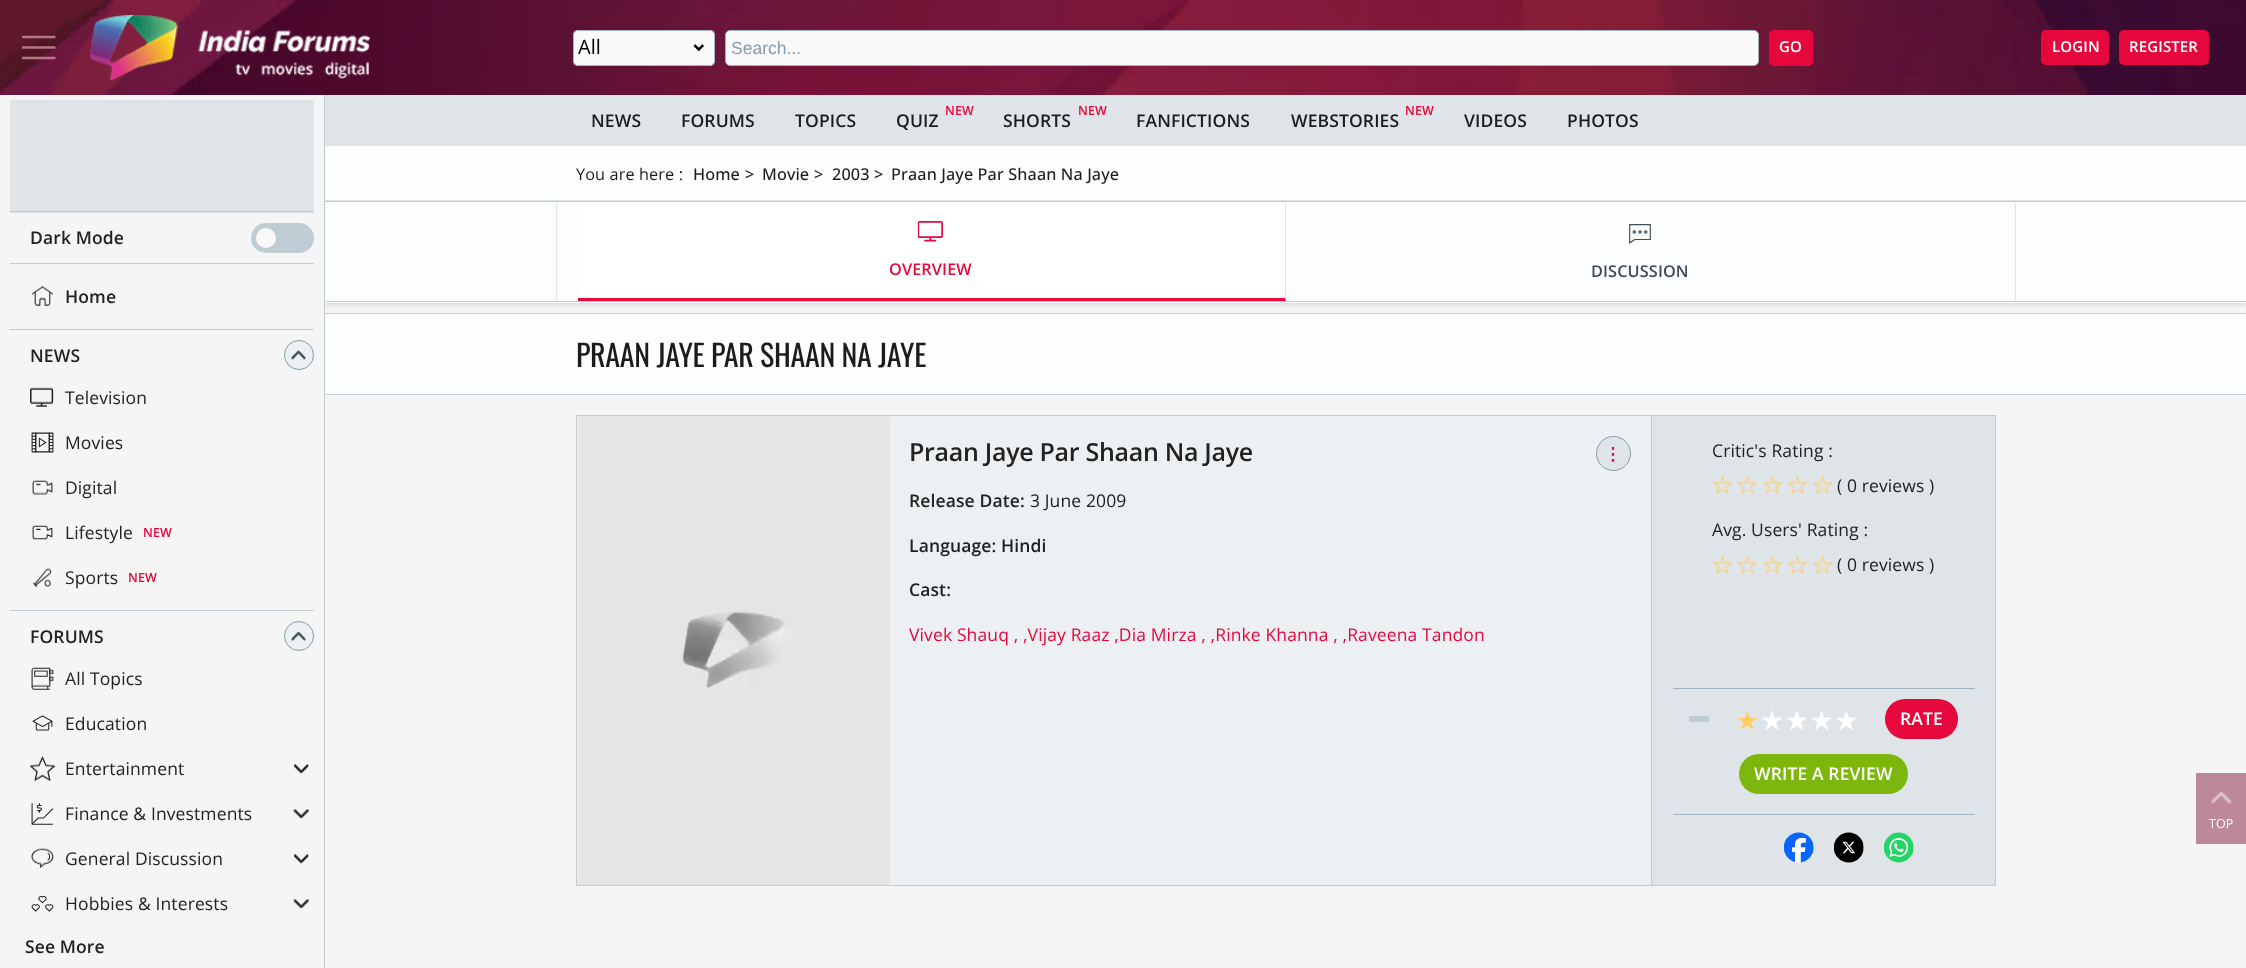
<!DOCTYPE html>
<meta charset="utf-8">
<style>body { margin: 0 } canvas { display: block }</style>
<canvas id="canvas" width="2246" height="968"></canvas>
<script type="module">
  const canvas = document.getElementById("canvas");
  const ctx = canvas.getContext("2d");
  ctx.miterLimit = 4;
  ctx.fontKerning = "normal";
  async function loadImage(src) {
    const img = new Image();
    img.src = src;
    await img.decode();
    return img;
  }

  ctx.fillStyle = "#f5f5f5";
  ctx.fillRect(0, 0, 2246, 968);
  ctx.drawImage(await loadImage("img1.png"), 0, 0, 2246, 95);
  ctx.drawImage(await loadImage("img2.png"), 22, 35, 34, 25);
  ctx.drawImage(await loadImage("img3.png"), 90, 15, 280, 65);
  ctx.fillStyle = "#f9f9f9";
  ctx.beginPath();
  ctx.roundRect(573, 30, 142, 36, 5);
  ctx.fill();
  ctx.drawImage(await loadImage("img4.png"), 693, 44, 11, 8);
  ctx.beginPath();
  ctx.roundRect(573.5, 30.5, 141, 35, 4.5);
  ctx.strokeStyle = "#a2b3be";
  ctx.stroke();
  ctx.font = "20px Open Sans";
  ctx.fillStyle = "#000000";
  ctx.fillText("All", 578, 54);
  ctx.fillStyle = "#f9f9f9";
  ctx.beginPath();
  ctx.roundRect(725.5, 30.5, 1033, 35, 4.5);
  ctx.fill();
  ctx.stroke();
  ctx.font = "17.5px Liberation Sans";
  ctx.fillStyle = "#849ba9";
  ctx.fillText("Search...", 731, 54);
  ctx.fillStyle = "#e6073d";
  ctx.beginPath();
  ctx.roundRect(1769, 30, 44, 36, 5);
  ctx.fill();
  ctx.font = "600 15px Open Sans";
  ctx.fillStyle = "#ffffff";
  ctx.fillText("GO", 1779, 52);
  ctx.fillStyle = "#e6073d";
  ctx.beginPath();
  ctx.roundRect(2041, 30, 68, 35, 5);
  ctx.fill();
  ctx.letterSpacing = "0.12px";
  ctx.fillStyle = "#ffffff";
  ctx.fillText("LOGIN", 2052, 52);
  ctx.fillStyle = "#e6073d";
  ctx.beginPath();
  ctx.roundRect(2119, 30, 90, 35, 5);
  ctx.fill();
  ctx.fillStyle = "#ffffff";
  ctx.fillText("REGISTER", 2129, 52);
  ctx.fillStyle = "#fcfdfd";
  ctx.fillRect(325, 146, 1921, 54);
  ctx.fillStyle = "#dee4e8";
  ctx.fillRect(325, 200, 1921, 1);
  ctx.fillStyle = "rgba(0, 0, 0, 0.11)";
  ctx.filter = "blur(2px)";
  ctx.beginPath();
  ctx.rect(325, 204, 1921, 101);
  ctx.fill();
  ctx.filter = "none";
  ctx.fillStyle = "#f5f5f5";
  ctx.fillRect(322, 204, 2, 101);
  ctx.fillStyle = "#c0ccd3";
  ctx.fillRect(324, 95, 1, 873);
  ctx.fillStyle = "#dee4e8";
  ctx.fillRect(10, 100, 304, 113);
  ctx.fillStyle = "#c0ccd3";
  ctx.fillRect(10, 211, 304, 1);
  ctx.fillRect(10, 263, 304, 1);
  ctx.font = "600 17.5px Open Sans";
  ctx.fillStyle = "#222222";
  ctx.fillText("Dark Mode", 30, 244);
  ctx.fillStyle = "#c0ccd3";
  ctx.beginPath();
  ctx.roundRect(251, 223, 63, 30, 15);
  ctx.fill();
  ctx.fillStyle = "#f9f9f9";
  ctx.beginPath();
  ctx.arc(266, 238, 10, 0, Math.PI * 2);
  ctx.fill();
  ctx.fillStyle = "#c0ccd3";
  ctx.fillRect(10, 329, 304, 1);
  ctx.drawImage(await loadImage("img5.png"), 31, 285, 22, 21);
  ctx.fillStyle = "#222222";
  ctx.fillText("Home", 65, 303);
  ctx.fillStyle = "#c0ccd3";
  ctx.fillRect(10, 610, 304, 1);
  ctx.fillStyle = "#222222";
  ctx.fillText("NEWS", 30, 362);
  ctx.fillStyle = "#edf0f2";
  ctx.beginPath();
  ctx.arc(299, 355, 14.5, 0, Math.PI * 2);
  ctx.fill();
  ctx.strokeStyle = "#849ba9";
  ctx.stroke();
  ctx.drawImage(await loadImage("img6.png"), 291, 350, 15, 10);
  ctx.drawImage(await loadImage("img7.png"), 30, 387, 24, 20);
  ctx.font = "17.5px Open Sans";
  ctx.fillStyle = "#222222";
  ctx.fillText("Television", 65, 404);
  ctx.drawImage(await loadImage("img8.png"), 31, 432, 23, 21);
  ctx.fillText("Movies", 65, 449);
  ctx.drawImage(await loadImage("img9.png"), 32, 480, 21, 15);
  ctx.fillText("Digital", 65, 494);
  ctx.drawImage(await loadImage("img10.png"), 32, 525, 21, 15);
  ctx.fillText("Lifestyle", 65, 539);
  ctx.font = "600 12.5px Open Sans";
  ctx.fillStyle = "#e6073d";
  ctx.fillText("NEW", 143, 537);
  ctx.drawImage(await loadImage("img11.png"), 33, 568, 19, 20);
  ctx.font = "17.5px Open Sans";
  ctx.fillStyle = "#222222";
  ctx.fillText("Sports", 65, 584);
  ctx.font = "600 12.5px Open Sans";
  ctx.fillStyle = "#e6073d";
  ctx.fillText("NEW", 128, 582);
  ctx.font = "600 17.5px Open Sans";
  ctx.fillStyle = "#222222";
  ctx.fillText("FORUMS", 30, 643);
  ctx.fillStyle = "#edf0f2";
  ctx.beginPath();
  ctx.arc(299, 636, 14.5, 0, Math.PI * 2);
  ctx.fill();
  ctx.stroke();
  ctx.drawImage(await loadImage("img12.png"), 291, 631, 15, 11);
  ctx.drawImage(await loadImage("img13.png"), 31, 667, 23, 23);
  ctx.font = "17.5px Open Sans";
  ctx.fillStyle = "#222222";
  ctx.fillText("All Topics", 65, 685);
  ctx.drawImage(await loadImage("img14.png"), 32, 715, 21, 16);
  ctx.fillText("Education", 65, 730);
  ctx.drawImage(await loadImage("img15.png"), 30, 756, 25, 25);
  ctx.fillText("Entertainment", 65, 775);
  ctx.drawImage(await loadImage("img16.png"), 294, 764, 15, 10);
  ctx.drawImage(await loadImage("img17.png"), 31, 803, 23, 22);
  ctx.fillText("Finance & Investments", 65, 820);
  ctx.drawImage(await loadImage("img18.png"), 293, 809, 16, 10);
  ctx.drawImage(await loadImage("img19.png"), 31, 848, 23, 20);
  ctx.fillText("General Discussion", 65, 865);
  ctx.drawImage(await loadImage("img16.png"), 294, 854, 15, 10);
  ctx.drawImage(await loadImage("img20.png"), 31, 896, 23, 16);
  ctx.fillText("Hobbies & Interests", 65, 910);
  ctx.drawImage(await loadImage("img21.png"), 293, 899, 16, 10);
  ctx.font = "600 17.5px Open Sans";
  ctx.fillText("See More", 25, 953);
  ctx.fillStyle = "#dee4e8";
  ctx.fillRect(325, 95, 1921, 51);
  ctx.fillStyle = "#1c1c1c";
  ctx.fillText("NEWS", 591, 127);
  ctx.fillText("FORUMS", 681, 127);
  ctx.fillText("TOPICS", 795, 127);
  ctx.font = "600 12.5px Open Sans";
  ctx.fillStyle = "#e6073d";
  ctx.fillText("NEW", 945, 115);
  ctx.font = "600 17.5px Open Sans";
  ctx.fillStyle = "#1c1c1c";
  ctx.fillText("QUIZ", 896, 127);
  ctx.font = "600 12.5px Open Sans";
  ctx.fillStyle = "#e6073d";
  ctx.fillText("NEW", 1078, 115);
  ctx.font = "600 17.5px Open Sans";
  ctx.fillStyle = "#1c1c1c";
  ctx.fillText("SHORTS", 1003, 127);
  ctx.fillText("FANFICTIONS", 1136, 127);
  ctx.font = "600 12.5px Open Sans";
  ctx.fillStyle = "#e6073d";
  ctx.fillText("NEW", 1405, 115);
  ctx.font = "600 17.5px Open Sans";
  ctx.fillStyle = "#1c1c1c";
  ctx.fillText("WEBSTORIES", 1291, 127);
  ctx.fillText("VIDEOS", 1464, 127);
  ctx.fillText("PHOTOS", 1567, 127);
  ctx.font = "16.25px Open Sans";
  ctx.fillText("You are here :", 576, 180);
  ctx.font = "500 16.25px Open Sans";
  ctx.fillText("Home", 693, 180);
  ctx.fillStyle = "#222222";
  ctx.fillText(">", 745, 180);
  ctx.fillStyle = "#1c1c1c";
  ctx.fillText("Movie", 762, 180);
  ctx.fillStyle = "#222222";
  ctx.fillText(">", 814, 180);
  ctx.fillStyle = "#1c1c1c";
  ctx.fillText("2003", 832, 180);
  ctx.fillStyle = "#222222";
  ctx.fillText(">", 874, 180);
  ctx.fillStyle = "#1c1c1c";
  ctx.fillText("Praan Jaye Par Shaan Na Jaye", 891, 180);
  ctx.fillStyle = "#fcfdfd";
  ctx.fillRect(325, 202, 1921, 101);
  ctx.fillStyle = "#c0ccd3";
  ctx.fillRect(325, 201, 1921, 1);
  ctx.fillRect(325, 301, 1921, 1);
  ctx.fillStyle = "#dee4e8";
  ctx.fillRect(2015, 203, 1, 98);
  ctx.fillRect(556, 203, 1, 98);
  ctx.fillStyle = "#ffffff";
  ctx.fillRect(578, 203, 708, 98);
  ctx.fillStyle = "#dee4e8";
  ctx.beginPath();
  ctx.moveTo(1286, 202);
  ctx.lineTo(1286, 301);
  ctx.lineTo(1285, 298);
  ctx.lineTo(1285, 202);
  ctx.closePath();
  ctx.fill();
  ctx.fillStyle = "#e6073d";
  ctx.beginPath();
  ctx.moveTo(1286, 301);
  ctx.lineTo(578, 301);
  ctx.lineTo(578, 298);
  ctx.lineTo(1285, 298);
  ctx.closePath();
  ctx.fill();
  ctx.drawImage(await loadImage("img22.png"), 917, 221, 26, 21);
  ctx.font = "600 16.25px Open Sans";
  ctx.fillText("OVERVIEW", 889, 275);
  ctx.drawImage(await loadImage("img23.png"), 1629, 224, 22, 20);
  ctx.fillStyle = "#3d4d57";
  ctx.fillText("DISCUSSION", 1591, 277);
  ctx.fillStyle = "#fcfdfd";
  ctx.fillRect(325, 314, 1921, 80);
  ctx.fillStyle = "#c0ccd3";
  ctx.fillRect(325, 313, 1921, 1);
  ctx.fillRect(325, 394, 1921, 1);
  ctx.letterSpacing = "-0.3px";
  ctx.font = "30px Oswald";
  ctx.fillStyle = "#1c1c1c";
  ctx.fillText("PRAAN JAYE PAR SHAAN NA JAYE", 576, 367);
  ctx.strokeStyle = "#c0ccd3";
  ctx.strokeRect(576.5, 415.5, 1419, 470);
  ctx.drawImage(await loadImage("img24.png"), 577, 416, 313, 469);
  ctx.fillStyle = "#edf0f2";
  ctx.fillRect(890, 416, 761, 469);
  ctx.font = "600 25px Open Sans";
  ctx.fillStyle = "#222222";
  ctx.fillText("Praan Jaye Par Shaan Na Jaye", 909, 461);
  ctx.fillStyle = "#dee4e8";
  ctx.beginPath();
  ctx.arc(1613.5, 453.5, 17, 0, Math.PI * 2);
  ctx.fill();
  ctx.strokeStyle = "#849ba9";
  ctx.stroke();
  ctx.letterSpacing = "0.12px";
  ctx.font = "bold 17.5px DejaVu Sans";
  ctx.fillStyle = "#e6073d";
  ctx.fillText("⋮", 1604, 460);
  ctx.font = "600 17.5px Open Sans";
  ctx.fillStyle = "#222222";
  ctx.fillText("Release Date:", 909, 507);
  ctx.font = "17.5px Open Sans";
  ctx.fillText("3 June 2009", 1030, 507);
  ctx.font = "600 17.5px Open Sans";
  ctx.fillText("Language: Hindi", 909, 552);
  ctx.fillText("Cast:", 909, 596);
  ctx.font = "17.5px Open Sans";
  ctx.fillStyle = "#e6073d";
  ctx.fillText("Vivek Shauq , ,Vijay Raaz ,Dia Mirza , ,Rinke Khanna , ,Raveena Tandon", 909, 641);
  ctx.fillStyle = "#dee4e8";
  ctx.fillRect(1652, 416, 343, 469);
  ctx.fillStyle = "#c0ccd3";
  ctx.fillRect(1651, 416, 1, 469);
  ctx.fillStyle = "#222222";
  ctx.fillText("Critic's Rating :", 1712, 457);
  ctx.drawImage(await loadImage("img25.png"), 1713, 476, 19, 18);
  ctx.drawImage(await loadImage("img25.png"), 1738, 476, 19, 18);
  ctx.drawImage(await loadImage("img26.png"), 1763, 476, 19, 18);
  ctx.drawImage(await loadImage("img25.png"), 1788, 476, 19, 18);
  ctx.drawImage(await loadImage("img25.png"), 1813, 476, 19, 18);
  ctx.fillText("( 0 reviews )", 1837, 492);
  ctx.fillText("Avg. Users' Rating :", 1712, 536);
  ctx.drawImage(await loadImage("img25.png"), 1713, 556, 19, 18);
  ctx.drawImage(await loadImage("img25.png"), 1738, 556, 19, 18);
  ctx.drawImage(await loadImage("img26.png"), 1763, 556, 19, 18);
  ctx.drawImage(await loadImage("img25.png"), 1788, 556, 19, 18);
  ctx.drawImage(await loadImage("img25.png"), 1813, 556, 19, 18);
  ctx.fillText("( 0 reviews )", 1837, 571);
  ctx.fillStyle = "#a2b3be";
  ctx.fillRect(1673, 688, 302, 1);
  ctx.fillRect(1673, 814, 302, 1);
  ctx.fillStyle = "#c0ccd3";
  ctx.fillRect(1689, 716, 20, 6);
  ctx.font = "27.5px DejaVu Sans";
  ctx.fillStyle = "#ffffff";
  ctx.fillText("★★★★★", 1735, 730);
  ctx.fillStyle = "#ffcc66";
  ctx.fillText("★", 1735, 730);
  ctx.fillStyle = "#e6073d";
  ctx.beginPath();
  ctx.roundRect(1885, 699, 73, 40, 20);
  ctx.fill();
  ctx.font = "600 17.5px Open Sans";
  ctx.fillStyle = "#ffffff";
  ctx.fillText("RATE", 1900, 725);
  ctx.fillStyle = "#7db70d";
  ctx.beginPath();
  ctx.roundRect(1739, 754, 169, 40, 20);
  ctx.fill();
  ctx.fillStyle = "#ffffff";
  ctx.fillText("WRITE A REVIEW", 1754, 780);
  ctx.drawImage(await loadImage("img27.png"), 1784, 832, 30, 31);
  ctx.drawImage(await loadImage("img28.png"), 1834, 832, 30, 31);
  ctx.drawImage(await loadImage("img29.png"), 1884, 832, 30, 31);
  ctx.fillStyle = "#bd8998";
  ctx.fillRect(2196, 773, 50, 71);
  ctx.drawImage(await loadImage("img30.png"), 2211, 791, 21, 13);
  ctx.font = "12.5px Open Sans";
  ctx.fillStyle = "#ffffff";
  ctx.fillText("TOP", 2209, 828);
</script>
